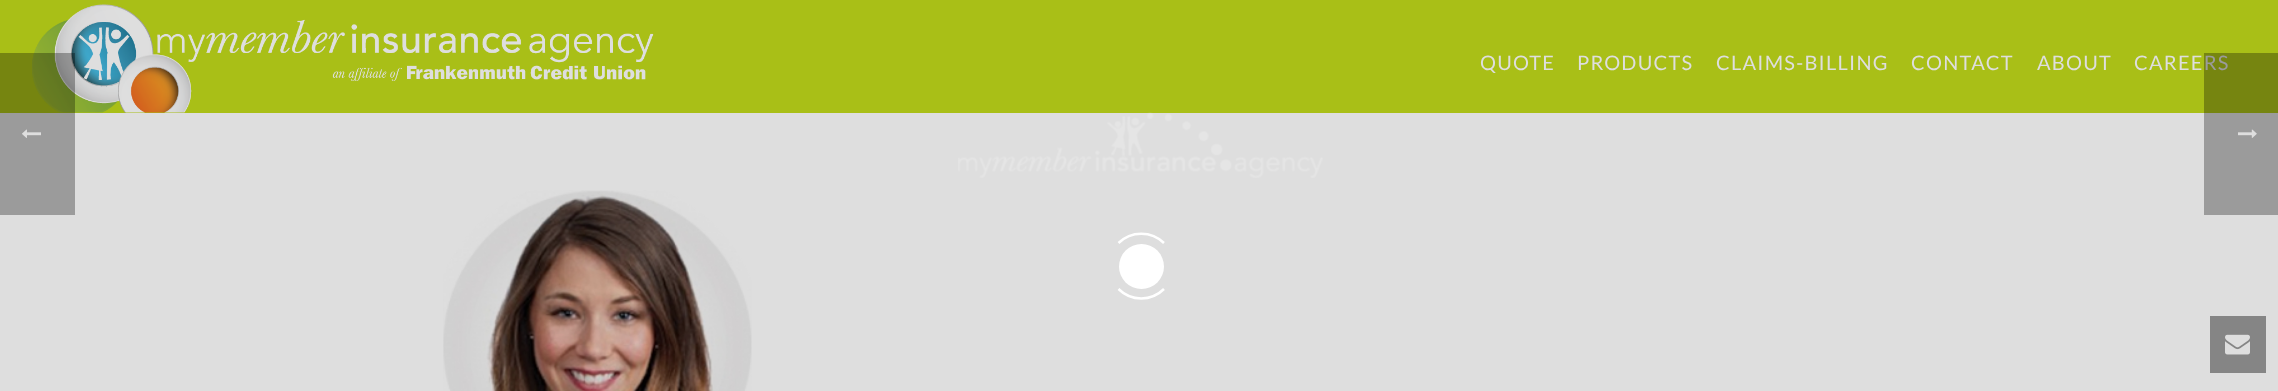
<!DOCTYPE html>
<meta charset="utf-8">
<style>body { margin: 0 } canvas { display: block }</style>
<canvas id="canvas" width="2278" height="391"></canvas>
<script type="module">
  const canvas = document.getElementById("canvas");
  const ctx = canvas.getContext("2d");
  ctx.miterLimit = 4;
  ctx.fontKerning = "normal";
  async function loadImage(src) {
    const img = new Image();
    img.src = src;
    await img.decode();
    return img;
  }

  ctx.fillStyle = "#dedede";
  ctx.fillRect(0, 0, 2278, 391);
  ctx.fillStyle = "#a9bf17";
  ctx.fillRect(0, 0, 2278, 113);
  ctx.drawImage(await loadImage("img2.png"), 32, 4, 622, 109);
  ctx.fillStyle = "rgba(0, 0, 0, 0.3)";
  ctx.fillRect(0, 53, 75, 162);
  ctx.drawImage(await loadImage("img1.png"), 22, 129, 19, 9);
  ctx.letterSpacing = "1.25px";
  ctx.font = "20px Lato";
  ctx.fillStyle = "#dedede";
  ctx.fillText("QUOTE", 1480, 70);
  ctx.fillText("PRODUCTS", 1577, 70);
  ctx.fillText("CLAIMS-BILLING", 1716, 70);
  ctx.fillText("CONTACT", 1911, 70);
  ctx.fillText("ABOUT", 2037, 70);
  ctx.fillText("CAREERS", 2134, 70);
  ctx.drawImage(await loadImage("img3.png"), 443, 190, 309, 201);
  ctx.fillStyle = "rgba(0, 0, 0, 0.3)";
  ctx.fillRect(2204, 53, 74, 162);
  ctx.drawImage(await loadImage("img4.png"), 2238, 129, 19, 9);
  ctx.drawImage(await loadImage("img5.png"), 958, 112, 365, 66);
  ctx.beginPath();
  ctx.moveTo(1118.5, 243);
  ctx.bezierCurveTo(1131, 230.5, 1151.5, 230.5, 1164, 243);
  ctx.strokeStyle = "#ffffff";
  ctx.lineWidth = 2.5;
  ctx.stroke();
  ctx.fillStyle = "#ffffff";
  ctx.beginPath();
  ctx.arc(1141.5, 266.5, 22.5, 0, Math.PI * 2);
  ctx.fill();
  ctx.beginPath();
  ctx.moveTo(1164, 289);
  ctx.bezierCurveTo(1151.5, 301.5, 1131, 301.5, 1118.5, 289);
  ctx.stroke();
  ctx.fillStyle = "#858585";
  ctx.fillRect(2210, 316, 56, 57);
  ctx.drawImage(await loadImage("img6.png"), 2225, 334, 25, 21);
</script>
